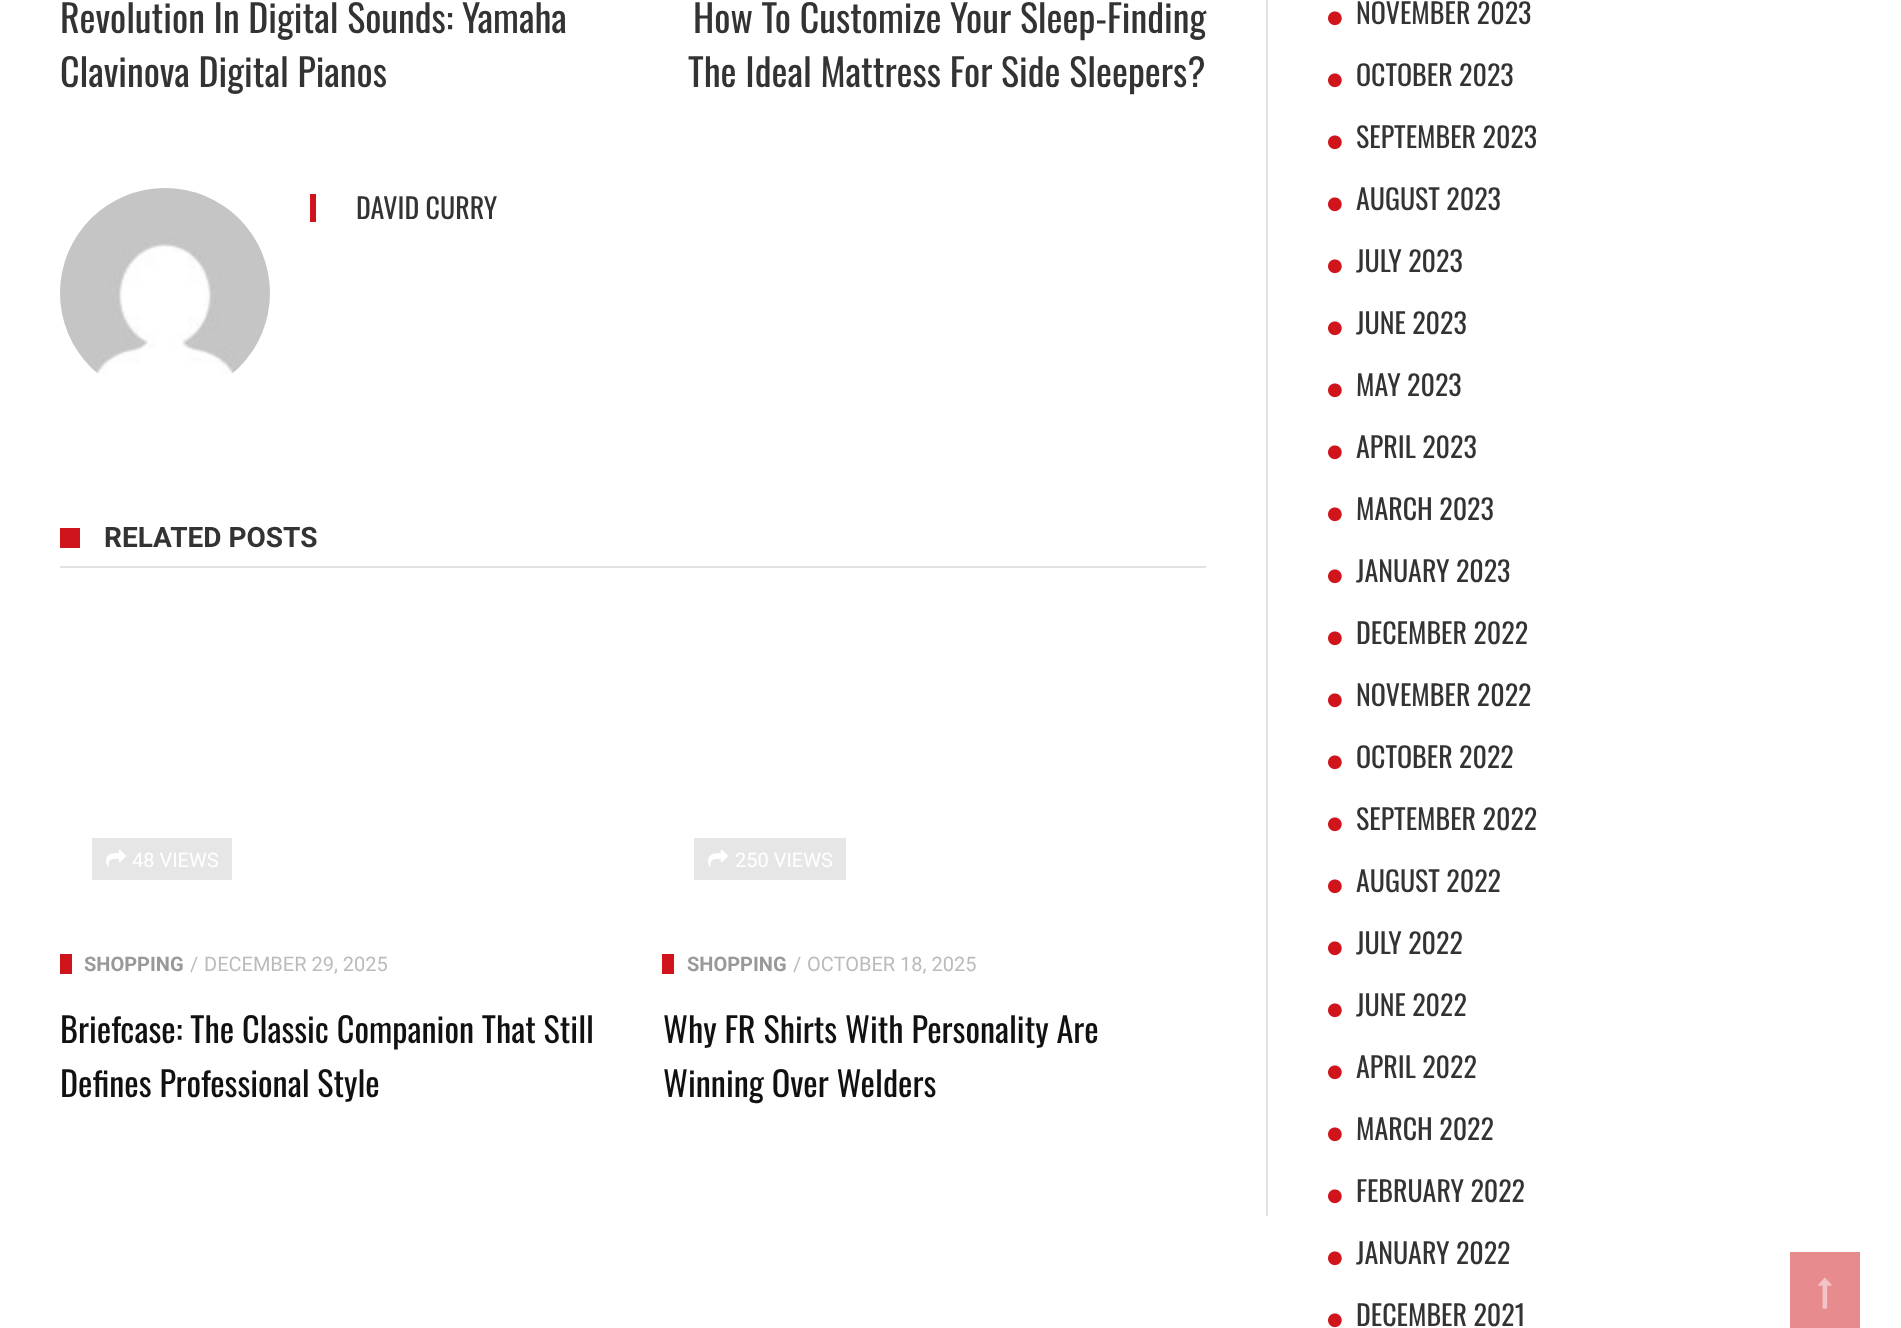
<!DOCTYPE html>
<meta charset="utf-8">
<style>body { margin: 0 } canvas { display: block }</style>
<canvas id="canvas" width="1901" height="1328"></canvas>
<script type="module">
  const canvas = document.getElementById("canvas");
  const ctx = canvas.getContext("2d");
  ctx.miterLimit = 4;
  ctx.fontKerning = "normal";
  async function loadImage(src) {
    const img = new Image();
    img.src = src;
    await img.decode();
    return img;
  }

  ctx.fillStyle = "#ffffff";
  ctx.fillRect(0, 0, 1901, 1328);
  ctx.fillStyle = "#e2e2e2";
  ctx.fillRect(1266, 0, 2, 1216);
  ctx.font = "38px Oswald";
  ctx.fillStyle = "#333333";
  ctx.fillText("Revolution In Digital Sounds: Yamaha", 60, 33);
  ctx.fillText("Clavinova Digital Pianos", 60, 87);
  ctx.fillText("How To Customize Your Sleep-Finding", 693, 33);
  ctx.fillText("The Ideal Mattress For Side Sleepers?", 688, 87);
  ctx.drawImage(await loadImage("img1.png"), 60, 188, 210, 186);
  ctx.fillStyle = "#cf151b";
  ctx.fillRect(310, 194, 6, 28);
  ctx.font = "28px Oswald";
  ctx.fillStyle = "#333333";
  ctx.fillText("DAVID CURRY", 356, 219);
  ctx.fillStyle = "#e2e2e2";
  ctx.fillRect(60, 566, 1146, 2);
  ctx.fillStyle = "#cf151b";
  ctx.fillRect(60, 528, 20, 20);
  ctx.font = "bold 28px Roboto";
  ctx.fillStyle = "#333333";
  ctx.fillText("RELATED POSTS", 104, 547);
  ctx.fillStyle = "#e6e6e6";
  ctx.fillRect(92, 838, 140, 42);
  ctx.drawImage(await loadImage("img2.png"), 106, 849, 20, 19);
  ctx.font = "20px Roboto";
  ctx.fillStyle = "#ffffff";
  ctx.fillText("48 VIEWS", 132, 867);
  ctx.fillStyle = "#cf151b";
  ctx.fillRect(60, 954, 12, 20);
  ctx.font = "bold 20px Roboto";
  ctx.fillStyle = "#999999";
  ctx.fillText("SHOPPING", 84, 971);
  ctx.font = "20px Roboto";
  ctx.fillStyle = "#bbbbbb";
  ctx.fillText("/", 190, 971);
  ctx.fillText("DECEMBER 29, 2025", 204, 971);
  ctx.font = "34.25px Oswald";
  ctx.fillStyle = "#111111";
  ctx.fillText("Briefcase: The Classic Companion That Still", 60, 1043);
  ctx.fillText("Defines Professional Style", 60, 1097);
  ctx.fillStyle = "#e6e6e6";
  ctx.fillRect(694, 838, 152, 42);
  ctx.drawImage(await loadImage("img2.png"), 708, 849, 20, 19);
  ctx.font = "20px Roboto";
  ctx.fillStyle = "#ffffff";
  ctx.fillText("250 VIEWS", 735, 867);
  ctx.fillStyle = "#cf151b";
  ctx.fillRect(662, 954, 12, 20);
  ctx.font = "bold 20px Roboto";
  ctx.fillStyle = "#999999";
  ctx.fillText("SHOPPING", 687, 971);
  ctx.font = "20px Roboto";
  ctx.fillStyle = "#bbbbbb";
  ctx.fillText("/", 793, 971);
  ctx.fillText("OCTOBER 18, 2025", 807, 971);
  ctx.font = "34.25px Oswald";
  ctx.fillStyle = "#111111";
  ctx.fillText("Why FR Shirts With Personality Are", 663, 1043);
  ctx.fillText("Winning Over Welders", 663, 1097);
  ctx.drawImage(await loadImage("img3.png"), 1328, 11, 14, 15);
  ctx.font = "28px Oswald";
  ctx.fillStyle = "#333333";
  ctx.fillText("NOVEMBER 2023", 1356, 24);
  ctx.drawImage(await loadImage("img3.png"), 1328, 73, 14, 15);
  ctx.fillText("OCTOBER 2023", 1356, 86);
  ctx.drawImage(await loadImage("img3.png"), 1328, 135, 14, 15);
  ctx.fillText("SEPTEMBER 2023", 1356, 148);
  ctx.drawImage(await loadImage("img3.png"), 1328, 197, 14, 15);
  ctx.fillText("AUGUST 2023", 1356, 210);
  ctx.drawImage(await loadImage("img3.png"), 1328, 259, 14, 15);
  ctx.fillText("JULY 2023", 1356, 272);
  ctx.drawImage(await loadImage("img3.png"), 1328, 321, 14, 15);
  ctx.fillText("JUNE 2023", 1356, 334);
  ctx.drawImage(await loadImage("img3.png"), 1328, 383, 14, 15);
  ctx.fillText("MAY 2023", 1356, 396);
  ctx.drawImage(await loadImage("img3.png"), 1328, 445, 14, 15);
  ctx.fillText("APRIL 2023", 1356, 458);
  ctx.drawImage(await loadImage("img3.png"), 1328, 507, 14, 15);
  ctx.fillText("MARCH 2023", 1356, 520);
  ctx.drawImage(await loadImage("img3.png"), 1328, 569, 14, 15);
  ctx.fillText("JANUARY 2023", 1356, 582);
  ctx.drawImage(await loadImage("img3.png"), 1328, 631, 14, 15);
  ctx.fillText("DECEMBER 2022", 1356, 644);
  ctx.drawImage(await loadImage("img3.png"), 1328, 693, 14, 15);
  ctx.fillText("NOVEMBER 2022", 1356, 706);
  ctx.drawImage(await loadImage("img3.png"), 1328, 755, 14, 15);
  ctx.fillText("OCTOBER 2022", 1356, 768);
  ctx.drawImage(await loadImage("img3.png"), 1328, 817, 14, 15);
  ctx.fillText("SEPTEMBER 2022", 1356, 830);
  ctx.drawImage(await loadImage("img3.png"), 1328, 879, 14, 15);
  ctx.fillText("AUGUST 2022", 1356, 892);
  ctx.drawImage(await loadImage("img3.png"), 1328, 941, 14, 15);
  ctx.fillText("JULY 2022", 1356, 954);
  ctx.drawImage(await loadImage("img3.png"), 1328, 1003, 14, 15);
  ctx.fillText("JUNE 2022", 1356, 1016);
  ctx.drawImage(await loadImage("img3.png"), 1328, 1065, 14, 15);
  ctx.fillText("APRIL 2022", 1356, 1078);
  ctx.drawImage(await loadImage("img3.png"), 1328, 1127, 14, 15);
  ctx.fillText("MARCH 2022", 1356, 1140);
  ctx.drawImage(await loadImage("img3.png"), 1328, 1189, 14, 15);
  ctx.fillText("FEBRUARY 2022", 1356, 1202);
  ctx.drawImage(await loadImage("img3.png"), 1328, 1251, 14, 15);
  ctx.fillText("JANUARY 2022", 1356, 1264);
  ctx.drawImage(await loadImage("img3.png"), 1328, 1313, 14, 15);
  ctx.fillText("DECEMBER 2021", 1356, 1326);
  ctx.fillStyle = "#e78b8e";
  ctx.fillRect(1790, 1252, 70, 76);
  ctx.drawImage(await loadImage("img4.png"), 1818, 1277, 14, 32);
</script>
